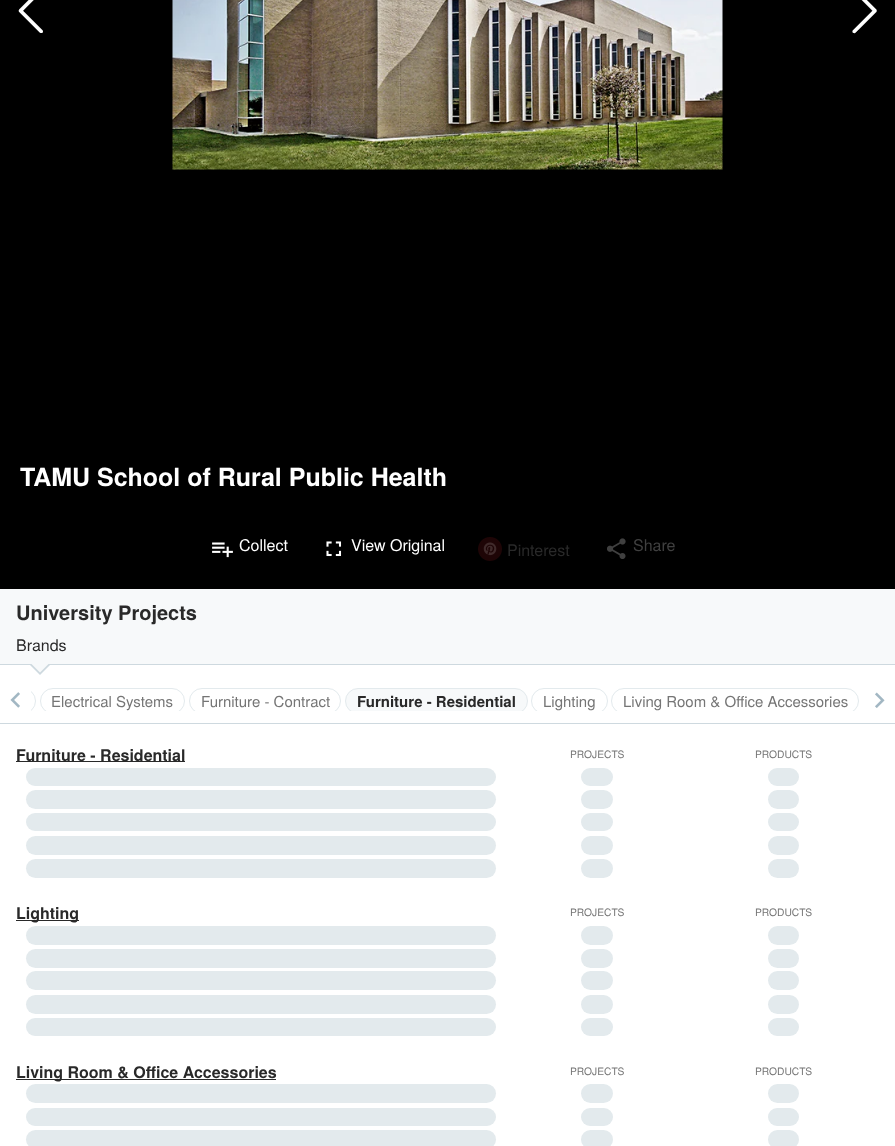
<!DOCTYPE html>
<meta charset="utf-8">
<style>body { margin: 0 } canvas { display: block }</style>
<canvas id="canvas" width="895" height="1146"></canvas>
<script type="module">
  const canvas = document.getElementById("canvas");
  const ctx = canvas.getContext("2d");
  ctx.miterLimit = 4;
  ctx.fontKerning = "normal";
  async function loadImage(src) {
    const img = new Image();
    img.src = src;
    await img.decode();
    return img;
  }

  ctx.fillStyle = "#ffffff";
  ctx.fillRect(0, 0, 895, 1146);
  ctx.fillStyle = "#000000";
  ctx.fillRect(0, 0, 895, 589);
  ctx.drawImage(await loadImage("img1.png"), 18, 0, 25, 33);
  ctx.drawImage(await loadImage("img2.png"), 852, 0, 25, 34);
  ctx.drawImage(await loadImage("img3.png"), 172, 0, 551, 170);
  ctx.font = "bold 25px TeX Gyre Heros";
  ctx.fillStyle = "#ffffff";
  ctx.fillText("TAMU School of Rural Public Health", 20, 486);
  ctx.drawImage(await loadImage("img4.png"), 212, 542, 21, 16);
  ctx.font = "16px TeX Gyre Heros";
  ctx.fillText("Collect", 239, 551);
  ctx.drawImage(await loadImage("img5.png"), 326, 541, 16, 16);
  ctx.fillText("View Original", 351, 551);
  ctx.drawImage(await loadImage("img6.png"), 478, 537, 24, 24);
  ctx.fillStyle = "#292929";
  ctx.fillText("Pinterest", 507, 556);
  ctx.drawImage(await loadImage("img7.png"), 607, 538, 19, 21);
  ctx.fillStyle = "#404040";
  ctx.fillText("Share", 633, 551);
  ctx.fillStyle = "#f7f9fa";
  ctx.fillRect(0, 589, 895, 75);
  ctx.fillStyle = "#ced9df";
  ctx.fillRect(0, 664, 895, 1);
  ctx.font = "bold 20px TeX Gyre Heros";
  ctx.fillStyle = "#292929";
  ctx.fillText("University Projects", 16, 620);
  ctx.font = "16px TeX Gyre Heros";
  ctx.fillText("Brands", 16, 651);
  ctx.fillStyle = "#ced9df";
  ctx.beginPath();
  ctx.moveTo(29, 664);
  ctx.lineTo(51, 664);
  ctx.lineTo(40, 675);
  ctx.closePath();
  ctx.fill();
  ctx.fillStyle = "#f7f9fa";
  ctx.beginPath();
  ctx.moveTo(30, 662.5);
  ctx.lineTo(50, 662.5);
  ctx.lineTo(40, 672.5);
  ctx.closePath();
  ctx.fill();
  ctx.drawImage(await loadImage("img8.png"), 10, 692, 10, 16);
  ctx.save();
  ctx.beginPath();
  ctx.rect(31, 680, 833, 31);
  ctx.clip();
  ctx.beginPath();
  ctx.roundRect(-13.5, 688.5, 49, 25, 12.5);
  ctx.strokeStyle = "#e3eaed";
  ctx.stroke();
  ctx.beginPath();
  ctx.roundRect(40.5, 688.5, 144, 25, 12.5);
  ctx.stroke();
  ctx.restore();
  ctx.font = "15px TeX Gyre Heros";
  ctx.fillStyle = "#757575";
  ctx.fillText("Electrical Systems", 51, 707);
  ctx.save();
  ctx.beginPath();
  ctx.rect(31, 680, 833, 31);
  ctx.clip();
  ctx.beginPath();
  ctx.roundRect(189.5, 688.5, 151, 25, 12.5);
  ctx.strokeStyle = "#e3eaed";
  ctx.stroke();
  ctx.restore();
  ctx.fillText("Furniture - Contract", 201, 707);
  ctx.save();
  ctx.beginPath();
  ctx.rect(31, 680, 833, 31);
  ctx.clip();
  ctx.fillStyle = "#f7f9fa";
  ctx.beginPath();
  ctx.roundRect(345.5, 688.5, 182, 25, 12.5);
  ctx.fill();
  ctx.strokeStyle = "#e3eaed";
  ctx.stroke();
  ctx.restore();
  ctx.font = "bold 15px TeX Gyre Heros";
  ctx.fillStyle = "#292929";
  ctx.fillText("Furniture - Residential", 357, 707);
  ctx.save();
  ctx.beginPath();
  ctx.rect(31, 680, 833, 31);
  ctx.clip();
  ctx.beginPath();
  ctx.roundRect(531.5, 688.5, 76, 25, 12.5);
  ctx.strokeStyle = "#e3eaed";
  ctx.stroke();
  ctx.restore();
  ctx.font = "15px TeX Gyre Heros";
  ctx.fillStyle = "#757575";
  ctx.fillText("Lighting", 543, 707);
  ctx.save();
  ctx.beginPath();
  ctx.rect(31, 680, 833, 31);
  ctx.clip();
  ctx.beginPath();
  ctx.roundRect(611.5, 688.5, 247, 25, 12.5);
  ctx.strokeStyle = "#e3eaed";
  ctx.stroke();
  ctx.restore();
  ctx.fillText("Living Room & Office Accessories", 623, 707);
  ctx.drawImage(await loadImage("img9.png"), 875, 692, 10, 16);
  ctx.fillStyle = "#ced9df";
  ctx.fillRect(0, 723, 895, 1);
  ctx.fillStyle = "#292929";
  ctx.fillRect(16, 761, 169, 1);
  ctx.font = "bold 16px TeX Gyre Heros";
  ctx.fillText("Furniture - Residential", 16, 761);
  ctx.font = "10.25px TeX Gyre Heros";
  ctx.fillStyle = "#757575";
  ctx.fillText("PROJECTS", 570, 758);
  ctx.fillText("PRODUCTS", 755, 758);
  ctx.fillStyle = "#e3eaed";
  ctx.beginPath();
  ctx.roundRect(26, 768, 470, 18, 9);
  ctx.fill();
  ctx.beginPath();
  ctx.roundRect(581, 768, 32, 18, 9);
  ctx.fill();
  ctx.beginPath();
  ctx.roundRect(768, 768, 31, 18, 9);
  ctx.fill();
  ctx.beginPath();
  ctx.roundRect(26, 790, 470, 19, 9.5);
  ctx.fill();
  ctx.beginPath();
  ctx.roundRect(581, 790, 32, 19, 9.5);
  ctx.fill();
  ctx.beginPath();
  ctx.roundRect(768, 790, 31, 19, 9.5);
  ctx.fill();
  ctx.beginPath();
  ctx.roundRect(26, 813, 470, 18, 9);
  ctx.fill();
  ctx.beginPath();
  ctx.roundRect(581, 813, 32, 18, 9);
  ctx.fill();
  ctx.beginPath();
  ctx.roundRect(768, 813, 31, 18, 9);
  ctx.fill();
  ctx.beginPath();
  ctx.roundRect(26, 836, 470, 19, 9.5);
  ctx.fill();
  ctx.beginPath();
  ctx.roundRect(581, 836, 32, 19, 9.5);
  ctx.fill();
  ctx.beginPath();
  ctx.roundRect(768, 836, 31, 19, 9.5);
  ctx.fill();
  ctx.beginPath();
  ctx.roundRect(26, 859, 470, 19, 9.5);
  ctx.fill();
  ctx.beginPath();
  ctx.roundRect(581, 859, 32, 19, 9.5);
  ctx.fill();
  ctx.beginPath();
  ctx.roundRect(768, 859, 31, 19, 9.5);
  ctx.fill();
  ctx.fillStyle = "#292929";
  ctx.fillRect(16, 920, 63, 1);
  ctx.font = "bold 16px TeX Gyre Heros";
  ctx.fillText("Lighting", 16, 919);
  ctx.font = "10.25px TeX Gyre Heros";
  ctx.fillStyle = "#757575";
  ctx.fillText("PROJECTS", 570, 916);
  ctx.fillText("PRODUCTS", 755, 916);
  ctx.fillStyle = "#e3eaed";
  ctx.beginPath();
  ctx.roundRect(26, 926, 470, 19, 9.5);
  ctx.fill();
  ctx.beginPath();
  ctx.roundRect(581, 926, 32, 19, 9.5);
  ctx.fill();
  ctx.beginPath();
  ctx.roundRect(768, 926, 31, 19, 9.5);
  ctx.fill();
  ctx.beginPath();
  ctx.roundRect(26, 949, 470, 19, 9.5);
  ctx.fill();
  ctx.beginPath();
  ctx.roundRect(581, 949, 32, 19, 9.5);
  ctx.fill();
  ctx.beginPath();
  ctx.roundRect(768, 949, 31, 19, 9.5);
  ctx.fill();
  ctx.beginPath();
  ctx.roundRect(26, 971, 470, 19, 9.5);
  ctx.fill();
  ctx.beginPath();
  ctx.roundRect(581, 971, 32, 19, 9.5);
  ctx.fill();
  ctx.beginPath();
  ctx.roundRect(768, 971, 31, 19, 9.5);
  ctx.fill();
  ctx.beginPath();
  ctx.roundRect(26, 995, 470, 19, 9.5);
  ctx.fill();
  ctx.beginPath();
  ctx.roundRect(581, 995, 32, 19, 9.5);
  ctx.fill();
  ctx.beginPath();
  ctx.roundRect(768, 995, 31, 19, 9.5);
  ctx.fill();
  ctx.beginPath();
  ctx.roundRect(26, 1018, 470, 18, 9);
  ctx.fill();
  ctx.beginPath();
  ctx.roundRect(581, 1018, 32, 18, 9);
  ctx.fill();
  ctx.beginPath();
  ctx.roundRect(768, 1018, 31, 18, 9);
  ctx.fill();
  ctx.fillStyle = "#292929";
  ctx.fillRect(16, 1079, 260, 1);
  ctx.font = "bold 16px TeX Gyre Heros";
  ctx.fillText("Living Room & Office Accessories", 16, 1078);
  ctx.font = "10.25px TeX Gyre Heros";
  ctx.fillStyle = "#757575";
  ctx.fillText("PROJECTS", 570, 1075);
  ctx.fillText("PRODUCTS", 755, 1075);
  ctx.fillStyle = "#e3eaed";
  ctx.beginPath();
  ctx.roundRect(26, 1084, 470, 19, 9.5);
  ctx.fill();
  ctx.beginPath();
  ctx.roundRect(581, 1084, 32, 19, 9.5);
  ctx.fill();
  ctx.beginPath();
  ctx.roundRect(768, 1084, 31, 19, 9.5);
  ctx.fill();
  ctx.beginPath();
  ctx.roundRect(26, 1108, 470, 18, 9);
  ctx.fill();
  ctx.beginPath();
  ctx.roundRect(581, 1108, 32, 18, 9);
  ctx.fill();
  ctx.beginPath();
  ctx.roundRect(768, 1108, 31, 18, 9);
  ctx.fill();
  ctx.beginPath();
  ctx.roundRect(26, 1130, 470, 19, 9.5);
  ctx.fill();
  ctx.beginPath();
  ctx.roundRect(581, 1130, 32, 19, 9.5);
  ctx.fill();
  ctx.beginPath();
  ctx.roundRect(768, 1130, 31, 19, 9.5);
  ctx.fill();
</script>
